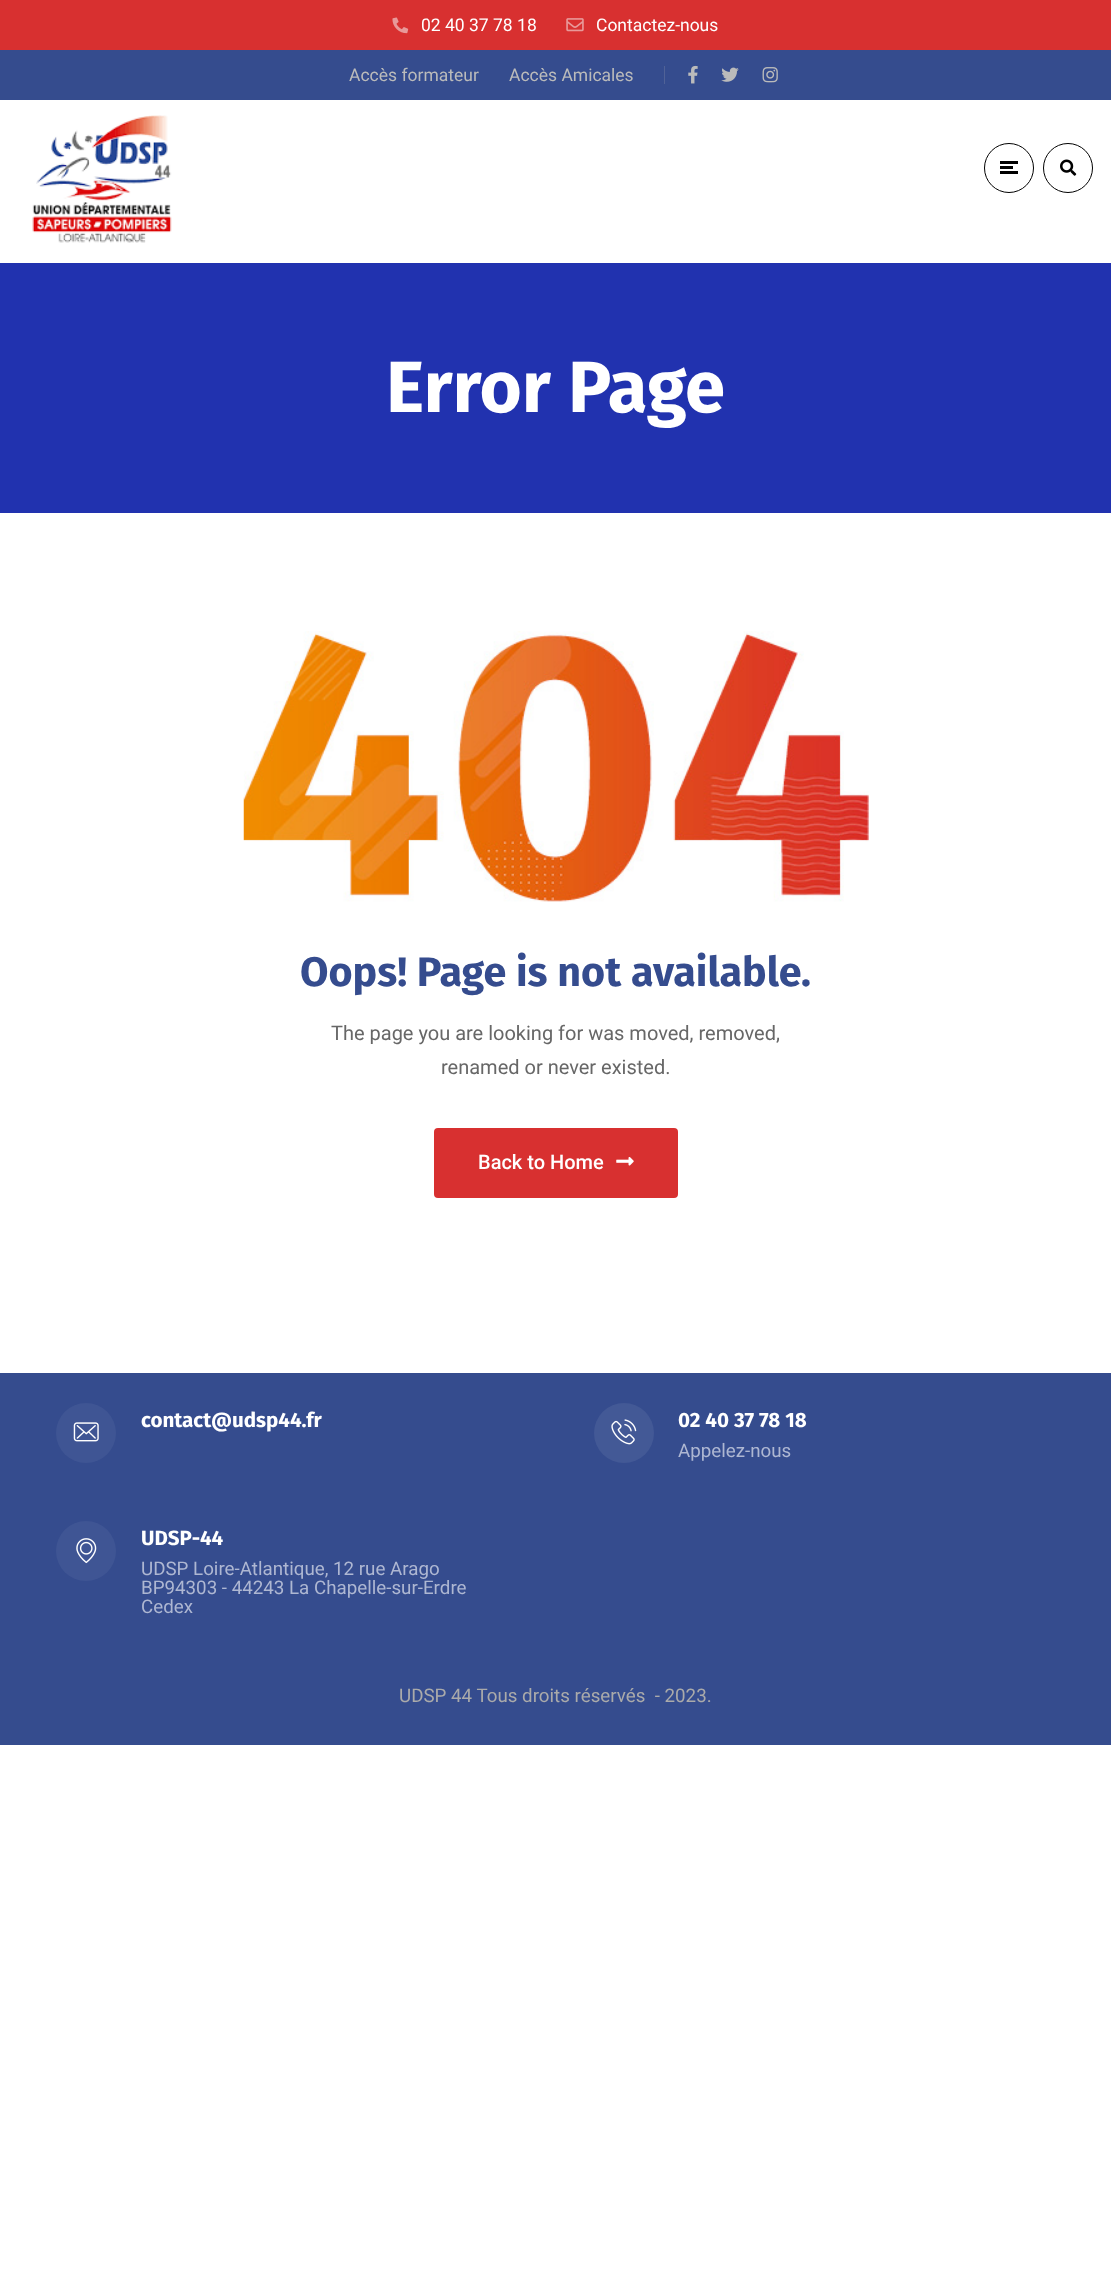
<!DOCTYPE html>
<meta charset="utf-8">
<style>body { margin: 0 } canvas { display: block }</style>
<canvas id="canvas" width="1111" height="2269"></canvas>
<script type="module">
  const canvas = document.getElementById("canvas");
  const ctx = canvas.getContext("2d");
  ctx.miterLimit = 4;
  ctx.fontKerning = "normal";
  async function loadImage(src) {
    const img = new Image();
    img.src = src;
    await img.decode();
    return img;
  }

  ctx.fillStyle = "#ffffff";
  ctx.fillRect(0, 0, 1111, 2269);
  ctx.fillStyle = "#354c8e";
  ctx.fillRect(0, 50, 1111, 50);
  ctx.fillStyle = "#d83030";
  ctx.fillRect(0, 0, 1111, 50);
  ctx.drawImage(await loadImage("img1.png"), 392, 17, 17, 17);
  ctx.font = "17.5px Roboto";
  ctx.fillStyle = "#ffffff";
  ctx.fillText("02 40 37 78 18", 421, 31);
  ctx.drawImage(await loadImage("img2.png"), 566, 18, 18, 14);
  ctx.fillText("Contactez-nous", 596, 31);
  ctx.fillStyle = "#bbbbbb";
  ctx.fillText("Accès formateur", 349, 81);
  ctx.fillText("Accès Amicales", 509, 81);
  ctx.fillStyle = "#506297";
  ctx.fillRect(664, 66, 1, 18);
  ctx.drawImage(await loadImage("img3.png"), 688, 65, 10, 19);
  ctx.drawImage(await loadImage("img4.png"), 721, 67, 18, 15);
  ctx.drawImage(await loadImage("img5.png"), 762, 67, 16, 16);
  ctx.drawImage(await loadImage("img6.png"), 32, 115, 140, 128);
  ctx.beginPath();
  ctx.arc(1009, 168, 24.5, 0, Math.PI * 2);
  ctx.strokeStyle = "#000000";
  ctx.stroke();
  ctx.fillStyle = "#000000";
  ctx.fillRect(1000, 161, 18, 3);
  ctx.fillRect(1000, 166, 13, 3);
  ctx.fillRect(1000, 171, 18, 3);
  ctx.beginPath();
  ctx.arc(1068, 168, 24.5, 0, Math.PI * 2);
  ctx.stroke();
  ctx.drawImage(await loadImage("img7.png"), 1060, 159, 17, 17);
  ctx.fillStyle = "#2132af";
  ctx.fillRect(0, 263, 1111, 250);
  ctx.font = "bold 72.5px Fira Sans";
  ctx.fillStyle = "#ffffff";
  ctx.fillText("Error Page", 386, 412);
  ctx.drawImage(await loadImage("img8.png"), 243, 631, 626, 271);
  ctx.font = "bold 41.25px Fira Sans";
  ctx.fillStyle = "#354c8e";
  ctx.fillText("Oops! Page is not available.", 300, 986);
  ctx.font = "20px Roboto";
  ctx.fillStyle = "#676767";
  ctx.fillText("The page you are looking for was moved, removed,", 331, 1040);
  ctx.fillText("renamed or never existed.", 441, 1074);
  ctx.fillStyle = "#d83030";
  ctx.beginPath();
  ctx.roundRect(434, 1128, 244, 70, 4);
  ctx.fill();
  ctx.font = "500 20px Roboto";
  ctx.fillStyle = "#ffffff";
  ctx.fillText("Back to Home", 478, 1169);
  ctx.drawImage(await loadImage("img9.png"), 616, 1157, 18, 9);
  ctx.fillStyle = "#354c8e";
  ctx.fillRect(0, 1373, 1111, 372);
  ctx.fillStyle = "#3f5594";
  ctx.beginPath();
  ctx.arc(86, 1433, 30, 0, Math.PI * 2);
  ctx.fill();
  ctx.drawImage(await loadImage("img10.png"), 73, 1422, 26, 20);
  ctx.font = "bold 20.6px Fira Sans";
  ctx.fillStyle = "#ffffff";
  ctx.fillText("contact@udsp44.fr", 141, 1427);
  ctx.fillStyle = "#435996";
  ctx.beginPath();
  ctx.arc(624, 1433, 30, 0, Math.PI * 2);
  ctx.fill();
  ctx.drawImage(await loadImage("img11.png"), 611, 1419, 26, 26);
  ctx.fillStyle = "#ffffff";
  ctx.fillText("02 40 37 78 18", 678, 1427);
  ctx.font = "18.75px Roboto";
  ctx.fillStyle = "#aeb7d2";
  ctx.fillText("Appelez-nous", 678, 1457);
  ctx.fillStyle = "#3f5594";
  ctx.beginPath();
  ctx.arc(86, 1551, 30, 0, Math.PI * 2);
  ctx.fill();
  ctx.drawImage(await loadImage("img12.png"), 76, 1538, 21, 26);
  ctx.font = "bold 20.6px Fira Sans";
  ctx.fillStyle = "#ffffff";
  ctx.fillText("UDSP-44", 141, 1545);
  ctx.font = "18.75px Roboto";
  ctx.fillStyle = "#aeb7d2";
  ctx.fillText("UDSP Loire-Atlantique, 12 rue Arago", 141, 1575);
  ctx.fillText("BP94303 - 44243 La Chapelle-sur-Erdre", 141, 1594);
  ctx.fillText("Cedex", 141, 1613);
  ctx.fillStyle = "#aaaaaa";
  ctx.fillText("UDSP 44 Tous droits réservés  - 2023.", 399, 1702);
</script>
